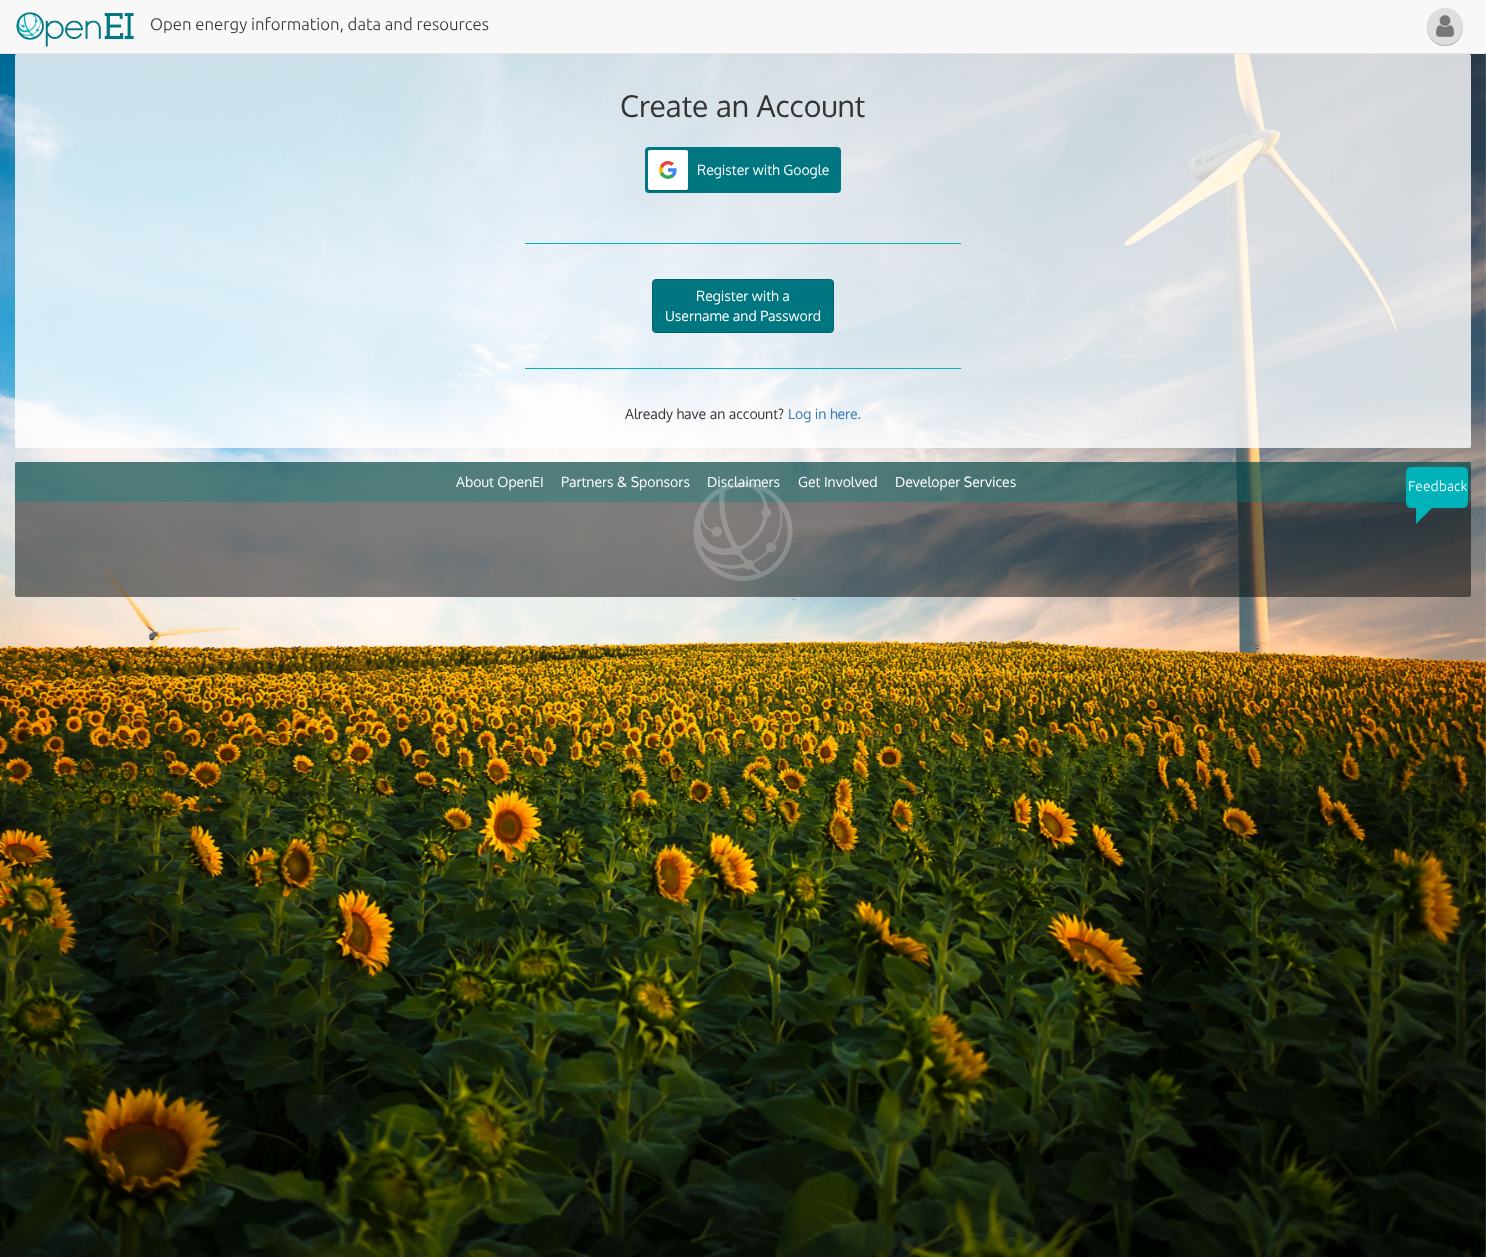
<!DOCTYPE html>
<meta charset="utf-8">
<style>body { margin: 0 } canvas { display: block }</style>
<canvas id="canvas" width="1486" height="1257"></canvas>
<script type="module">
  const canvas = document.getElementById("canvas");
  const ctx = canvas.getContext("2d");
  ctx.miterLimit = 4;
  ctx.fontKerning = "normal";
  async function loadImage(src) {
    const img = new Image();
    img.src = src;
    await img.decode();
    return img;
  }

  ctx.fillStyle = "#ffffff";
  ctx.fillRect(0, 0, 1486, 1257);
  ctx.fillStyle = "#f8f8f8";
  ctx.fillRect(0, 0, 1486, 53);
  ctx.fillStyle = "#e7e7e7";
  ctx.fillRect(0, 53, 1486, 1);
  ctx.drawImage(await loadImage("img1.png"), 16, 12, 118, 35);
  ctx.font = "300 16.8px Ubuntu";
  ctx.fillStyle = "#333333";
  ctx.fillText("Open energy information, data and resources", 150, 30);
  ctx.save();
  ctx.beginPath();
  ctx.moveTo(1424, 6);
  ctx.lineTo(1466, 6);
  ctx.lineTo(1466, 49);
  ctx.lineTo(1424, 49);
  ctx.closePath();
  ctx.moveTo(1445, 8);
  ctx.bezierCurveTo(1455, 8, 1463, 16, 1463, 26);
  ctx.lineTo(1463, 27);
  ctx.bezierCurveTo(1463, 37, 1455, 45, 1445, 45);
  ctx.bezierCurveTo(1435, 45, 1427, 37, 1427, 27);
  ctx.lineTo(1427, 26);
  ctx.bezierCurveTo(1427, 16, 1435, 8, 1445, 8);
  ctx.closePath();
  ctx.clip("evenodd");
  ctx.fillStyle = "rgba(0, 0, 0, 0.3)";
  ctx.filter = "blur(0.5px)";
  ctx.beginPath();
  ctx.roundRect(1427, 9, 36, 37, 18);
  ctx.fill();
  ctx.filter = "none";
  ctx.restore();
  ctx.fillStyle = "rgba(0, 0, 0, 0.1)";
  ctx.beginPath();
  ctx.roundRect(1427, 8, 36, 37, 18);
  ctx.fill();
  ctx.drawImage(await loadImage("img2.png"), 1436, 15, 18, 22);
  ctx.drawImage(await loadImage("img3.png"), 0, 54, 1486, 1203);
  ctx.fillStyle = "rgba(255, 255, 255, 0.8)";
  ctx.beginPath();
  ctx.roundRect(15, 54, 1456, 394, 2);
  ctx.fill();
  ctx.font = "30px Oxygen";
  ctx.fillStyle = "#333333";
  ctx.fillText("Create an Account", 620, 117);
  ctx.fillStyle = "#007680";
  ctx.beginPath();
  ctx.roundRect(645, 147, 196, 46, 4);
  ctx.fill();
  ctx.drawImage(await loadImage("img4.png"), 648, 150, 40, 41);
  ctx.font = "14px Oxygen";
  ctx.fillStyle = "#ffffff";
  ctx.fillText("Register with Google", 697, 175);
  ctx.fillStyle = "#00b2b9";
  ctx.fillRect(525, 243, 436, 1);
  ctx.fillStyle = "#007680";
  ctx.beginPath();
  ctx.roundRect(652.5, 279.5, 181, 53, 3.5);
  ctx.fill();
  ctx.strokeStyle = "#00626d";
  ctx.stroke();
  ctx.fillStyle = "#ffffff";
  ctx.fillText("Register with a", 696, 301);
  ctx.fillText("Username and Password", 665, 321);
  ctx.fillStyle = "#00b2b9";
  ctx.fillRect(525, 368, 436, 1);
  ctx.fillStyle = "#333333";
  ctx.fillText("Already have an account?", 625, 419);
  ctx.fillStyle = "#337ab7";
  ctx.fillText("Log in here.", 788, 419);
  ctx.fillStyle = "rgba(0, 0, 0, 0.5)";
  ctx.beginPath();
  ctx.roundRect(15, 462, 1456, 135, 2);
  ctx.fill();
  ctx.fillStyle = "rgba(0, 128, 128, 0.35)";
  ctx.fillRect(15, 462, 1456, 40);
  ctx.fillStyle = "#ffffff";
  ctx.fillText("About OpenEI", 456, 487);
  ctx.fillText("Partners & Sponsors", 561, 487);
  ctx.drawImage(await loadImage("img5.png"), 693, 482, 100, 99);
  ctx.fillText("Disclaimers", 707, 487);
  ctx.fillText("Get Involved", 798, 487);
  ctx.fillText("Developer Services", 895, 487);
  ctx.fillStyle = "#00b2b9";
  ctx.beginPath();
  ctx.moveTo(1411, 467);
  ctx.lineTo(1464, 467);
  ctx.bezierCurveTo(1469, 468, 1468, 474, 1468, 478);
  ctx.lineTo(1468, 498);
  ctx.bezierCurveTo(1468, 508, 1467, 508, 1458, 508);
  ctx.lineTo(1432, 508);
  ctx.lineTo(1416, 524);
  ctx.lineTo(1416, 508);
  ctx.bezierCurveTo(1407, 508, 1406, 508, 1406, 498);
  ctx.lineTo(1406, 478);
  ctx.bezierCurveTo(1406, 474, 1405, 467, 1411, 467);
  ctx.closePath();
  ctx.fill();
  ctx.font = "300 14px Ubuntu";
  ctx.fillStyle = "#ffffff";
  ctx.fillText("Feedback", 1408, 491);
</script>
